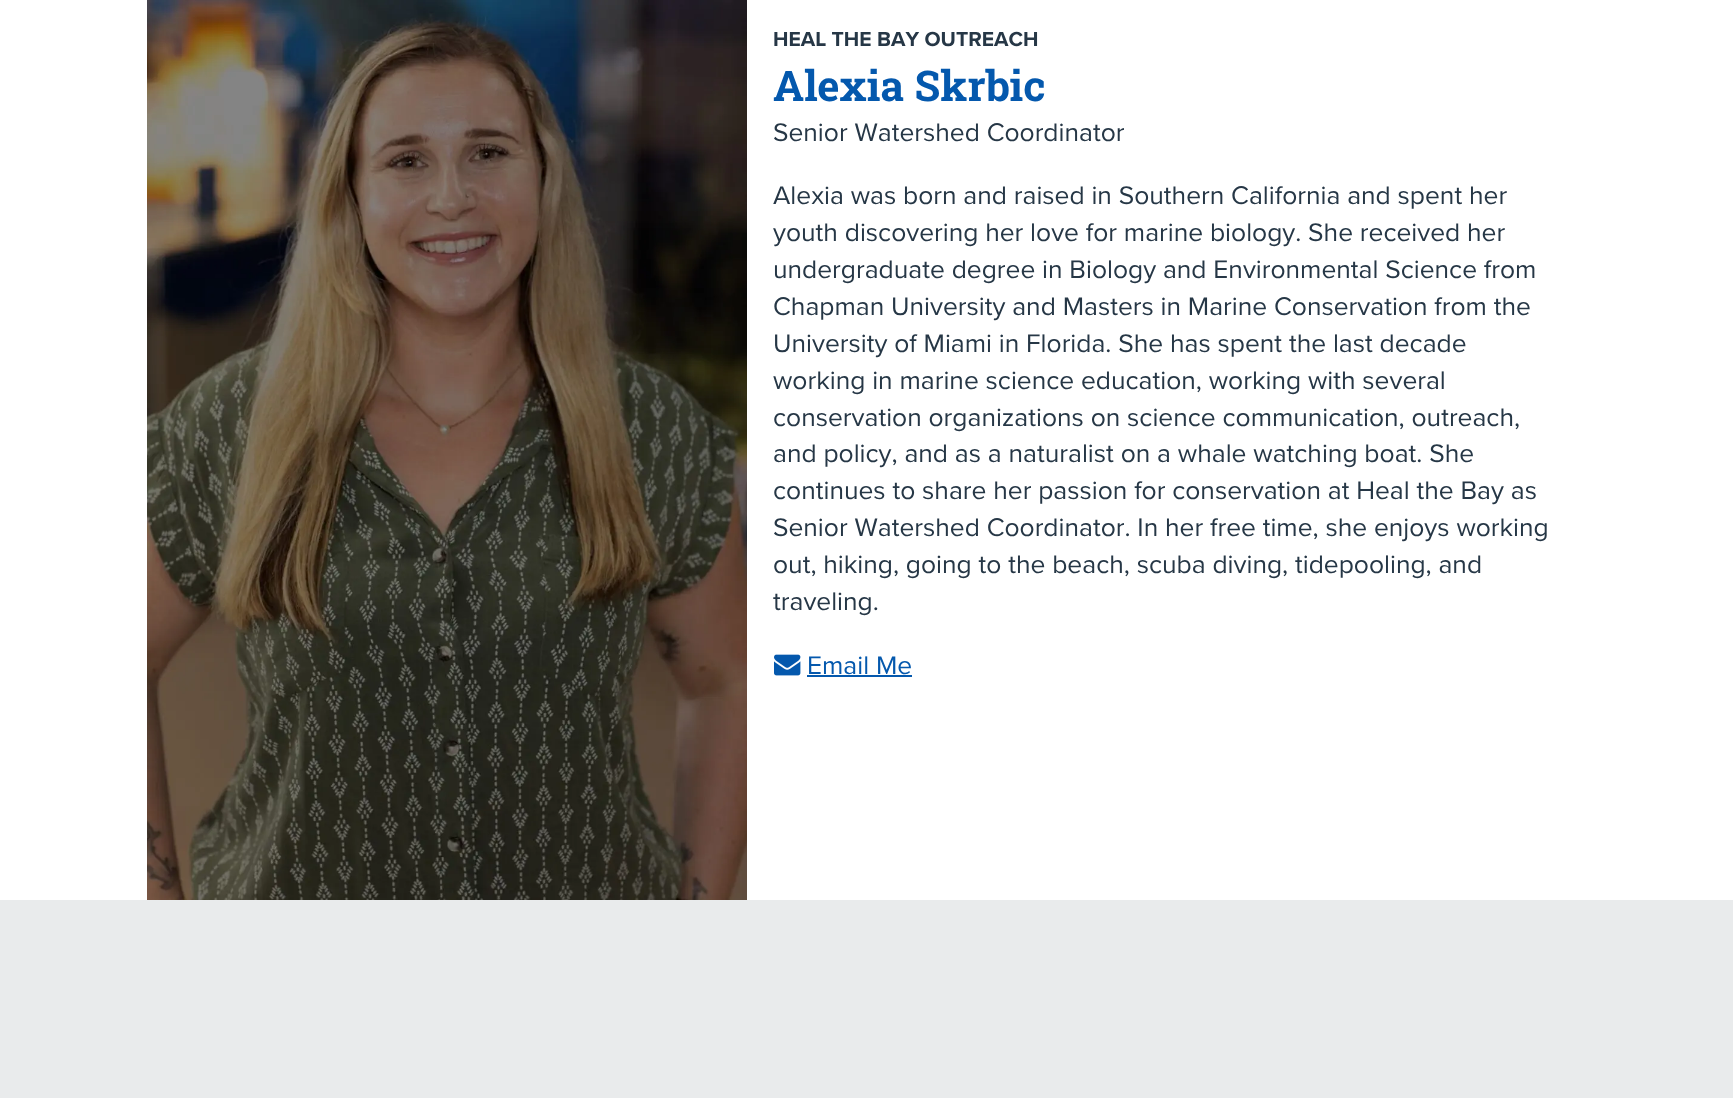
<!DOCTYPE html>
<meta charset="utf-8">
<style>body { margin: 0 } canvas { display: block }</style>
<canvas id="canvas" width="1733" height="1098"></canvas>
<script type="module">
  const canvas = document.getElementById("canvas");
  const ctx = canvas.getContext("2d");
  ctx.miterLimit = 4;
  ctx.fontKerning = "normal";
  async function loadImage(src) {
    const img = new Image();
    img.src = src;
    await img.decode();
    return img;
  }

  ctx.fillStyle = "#e9ebec";
  ctx.fillRect(0, 0, 1733, 1098);
  ctx.fillStyle = "#ffffff";
  ctx.fillRect(0, 0, 1733, 900);
  ctx.drawImage(await loadImage("img1.png"), 147, 0, 600, 900);
  ctx.font = "bold 21.1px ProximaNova";
  ctx.fillStyle = "#263746";
  ctx.fillText("HEAL THE BAY OUTREACH", 773, 46);
  ctx.font = "bold 42.25px Roboto Slab";
  ctx.fillStyle = "#0458ad";
  ctx.fillText("Alexia Skrbic", 773, 101);
  ctx.font = "26.4px ProximaNova";
  ctx.fillStyle = "#263746";
  ctx.fillText("Senior Watershed Coordinator", 773, 141);
  ctx.fillText("Alexia was born and raised in Southern California and spent her", 773, 204);
  ctx.fillText("youth discovering her love for marine biology. She received her", 773, 241);
  ctx.fillText("undergraduate degree in Biology and Environmental Science from", 773, 278);
  ctx.fillText("Chapman University and Masters in Marine Conservation from the", 773, 315);
  ctx.fillText("University of Miami in Florida. She has spent the last decade", 773, 352);
  ctx.fillText("working in marine science education, working with several", 773, 389);
  ctx.fillText("conservation organizations on science communication, outreach,", 773, 426);
  ctx.fillText("and policy, and as a naturalist on a whale watching boat. She", 773, 462);
  ctx.fillText("continues to share her passion for conservation at Heal the Bay as", 773, 499);
  ctx.fillText("Senior Watershed Coordinator. In her free time, she enjoys working", 773, 536);
  ctx.fillText("out, hiking, going to the beach, scuba diving, tidepooling, and", 773, 573);
  ctx.fillText("traveling.", 773, 610);
  ctx.drawImage(await loadImage("img2.png"), 774, 654, 27, 22);
  ctx.fillStyle = "#0458ad";
  ctx.fillText("Email Me", 807, 674);
  ctx.fillRect(807, 675, 105, 2);
</script>
